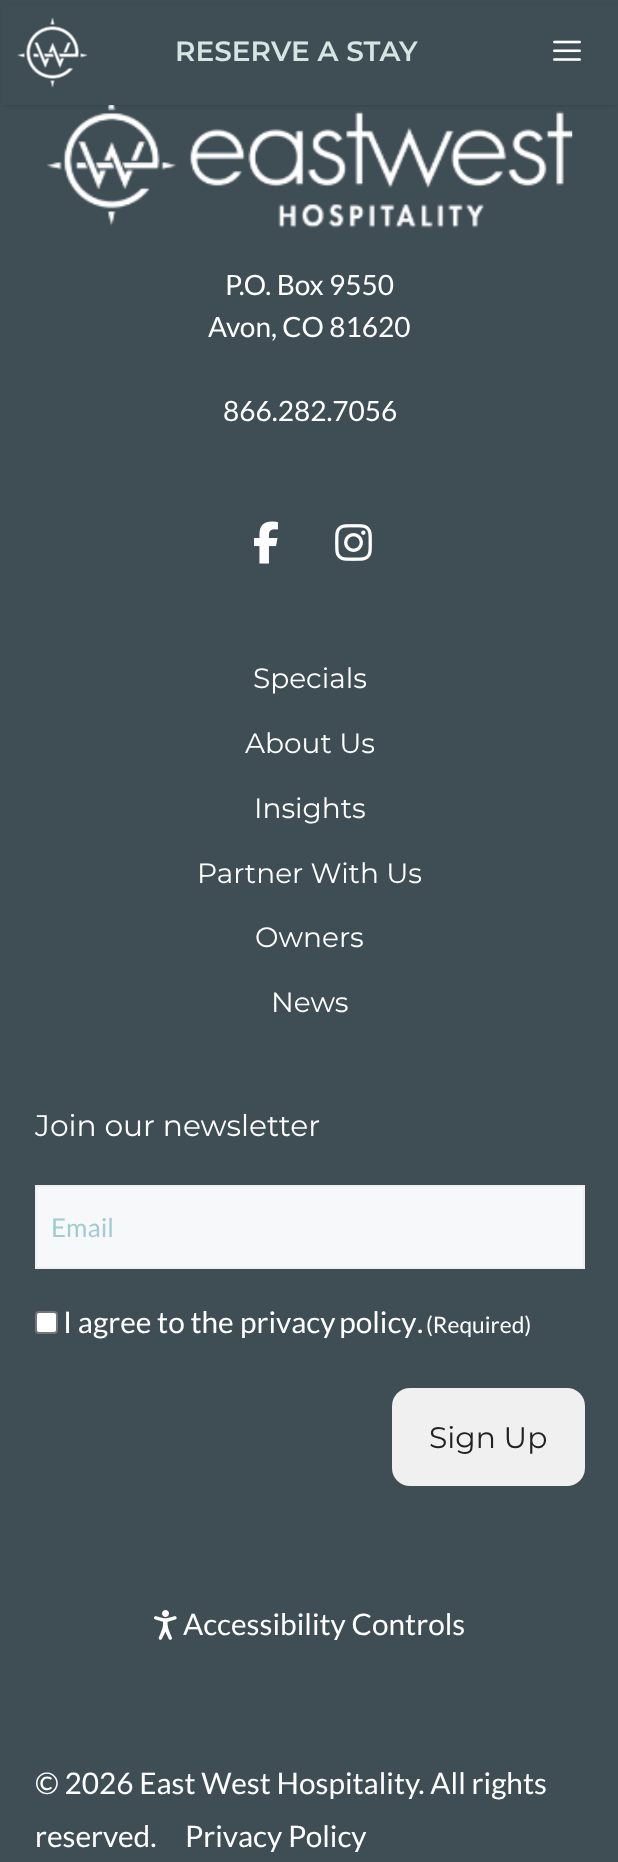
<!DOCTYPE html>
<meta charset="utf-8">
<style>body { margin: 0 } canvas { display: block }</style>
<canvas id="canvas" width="618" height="1862"></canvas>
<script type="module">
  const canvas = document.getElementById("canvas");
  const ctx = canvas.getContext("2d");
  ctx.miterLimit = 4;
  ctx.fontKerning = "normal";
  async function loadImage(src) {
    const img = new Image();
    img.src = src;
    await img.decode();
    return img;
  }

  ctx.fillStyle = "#3f4d55";
  ctx.fillRect(0, 0, 618, 1862);
  ctx.drawImage(await loadImage("img3.png"), 47, 105, 526, 123);
  ctx.fillStyle = "rgba(0, 0, 0, 0.2)";
  ctx.filter = "blur(2px)";
  ctx.beginPath();
  ctx.rect(4, 7, 612, 98);
  ctx.fill();
  ctx.filter = "none";
  ctx.fillStyle = "#3f4d55";
  ctx.fillRect(2, 5, 616, 100);
  ctx.drawImage(await loadImage("img1.png"), 17, 17, 71, 71);
  ctx.font = "600 28px Montserrat";
  ctx.fillStyle = "#d4e5e3";
  ctx.fillText("RESERVE A STAY", 175, 61);
  ctx.drawImage(await loadImage("img2.png"), 553, 40, 28, 21);
  ctx.font = "28px Lato";
  ctx.fillStyle = "#ffffff";
  ctx.fillText("P.O. Box 9550", 225, 295);
  ctx.fillText("Avon, CO 81620", 208, 337);
  ctx.fillText("866.282.7056", 223, 421);
  ctx.drawImage(await loadImage("img4.png"), 254, 521, 24, 43);
  ctx.drawImage(await loadImage("img5.png"), 335, 524, 37, 37);
  ctx.font = "100 28px Montserrat";
  ctx.fillText("Specials", 253, 688);
  ctx.fillText("About Us", 245, 753);
  ctx.fillText("Insights", 254, 818);
  ctx.fillText("Partner With Us", 197, 883);
  ctx.fillText("Owners", 255, 947);
  ctx.fillText("News", 271, 1012);
  ctx.font = "100 29.75px Montserrat";
  ctx.fillText("Join our newsletter", 35, 1136);
  ctx.fillStyle = "#f7f8f9";
  ctx.beginPath();
  ctx.rect(36, 1186, 548, 82);
  ctx.fill();
  ctx.strokeStyle = "#f0f0f0";
  ctx.lineWidth = 2;
  ctx.stroke();
  ctx.font = "26px Lato";
  ctx.fillStyle = "#a0ccd4";
  ctx.fillText("Email", 51, 1237);
  ctx.fillStyle = "#ffffff";
  ctx.beginPath();
  ctx.roundRect(36, 1312, 21, 21, 3);
  ctx.fill();
  ctx.strokeStyle = "#767676";
  ctx.stroke();
  ctx.font = "29.75px Lato";
  ctx.fillText("I agree to the", 63, 1333);
  ctx.wordSpacing = "-2px";
  ctx.fillText("privacy policy", 240, 1333);
  ctx.wordSpacing = "0px";
  ctx.fillText(".", 417, 1333);
  ctx.font = "22.75px Lato";
  ctx.fillText("(Required)", 426, 1333);
  ctx.fillStyle = "#f0f0f0";
  ctx.beginPath();
  ctx.roundRect(392, 1388, 193, 98, 18);
  ctx.fill();
  ctx.font = "100 29.75px Montserrat";
  ctx.fillStyle = "#222222";
  ctx.fillText("Sign Up", 429, 1448);
  ctx.drawImage(await loadImage("img6.png"), 154, 1610, 23, 30);
  ctx.font = "29.75px Lato";
  ctx.fillStyle = "#ffffff";
  ctx.fillText("Accessibility Controls", 183, 1635);
  ctx.fillText("© 2026 East West Hospitality. All rights", 35, 1794);
  ctx.fillText("reserved.", 35, 1847);
  ctx.fillText("Privacy Policy", 185, 1847);
</script>
